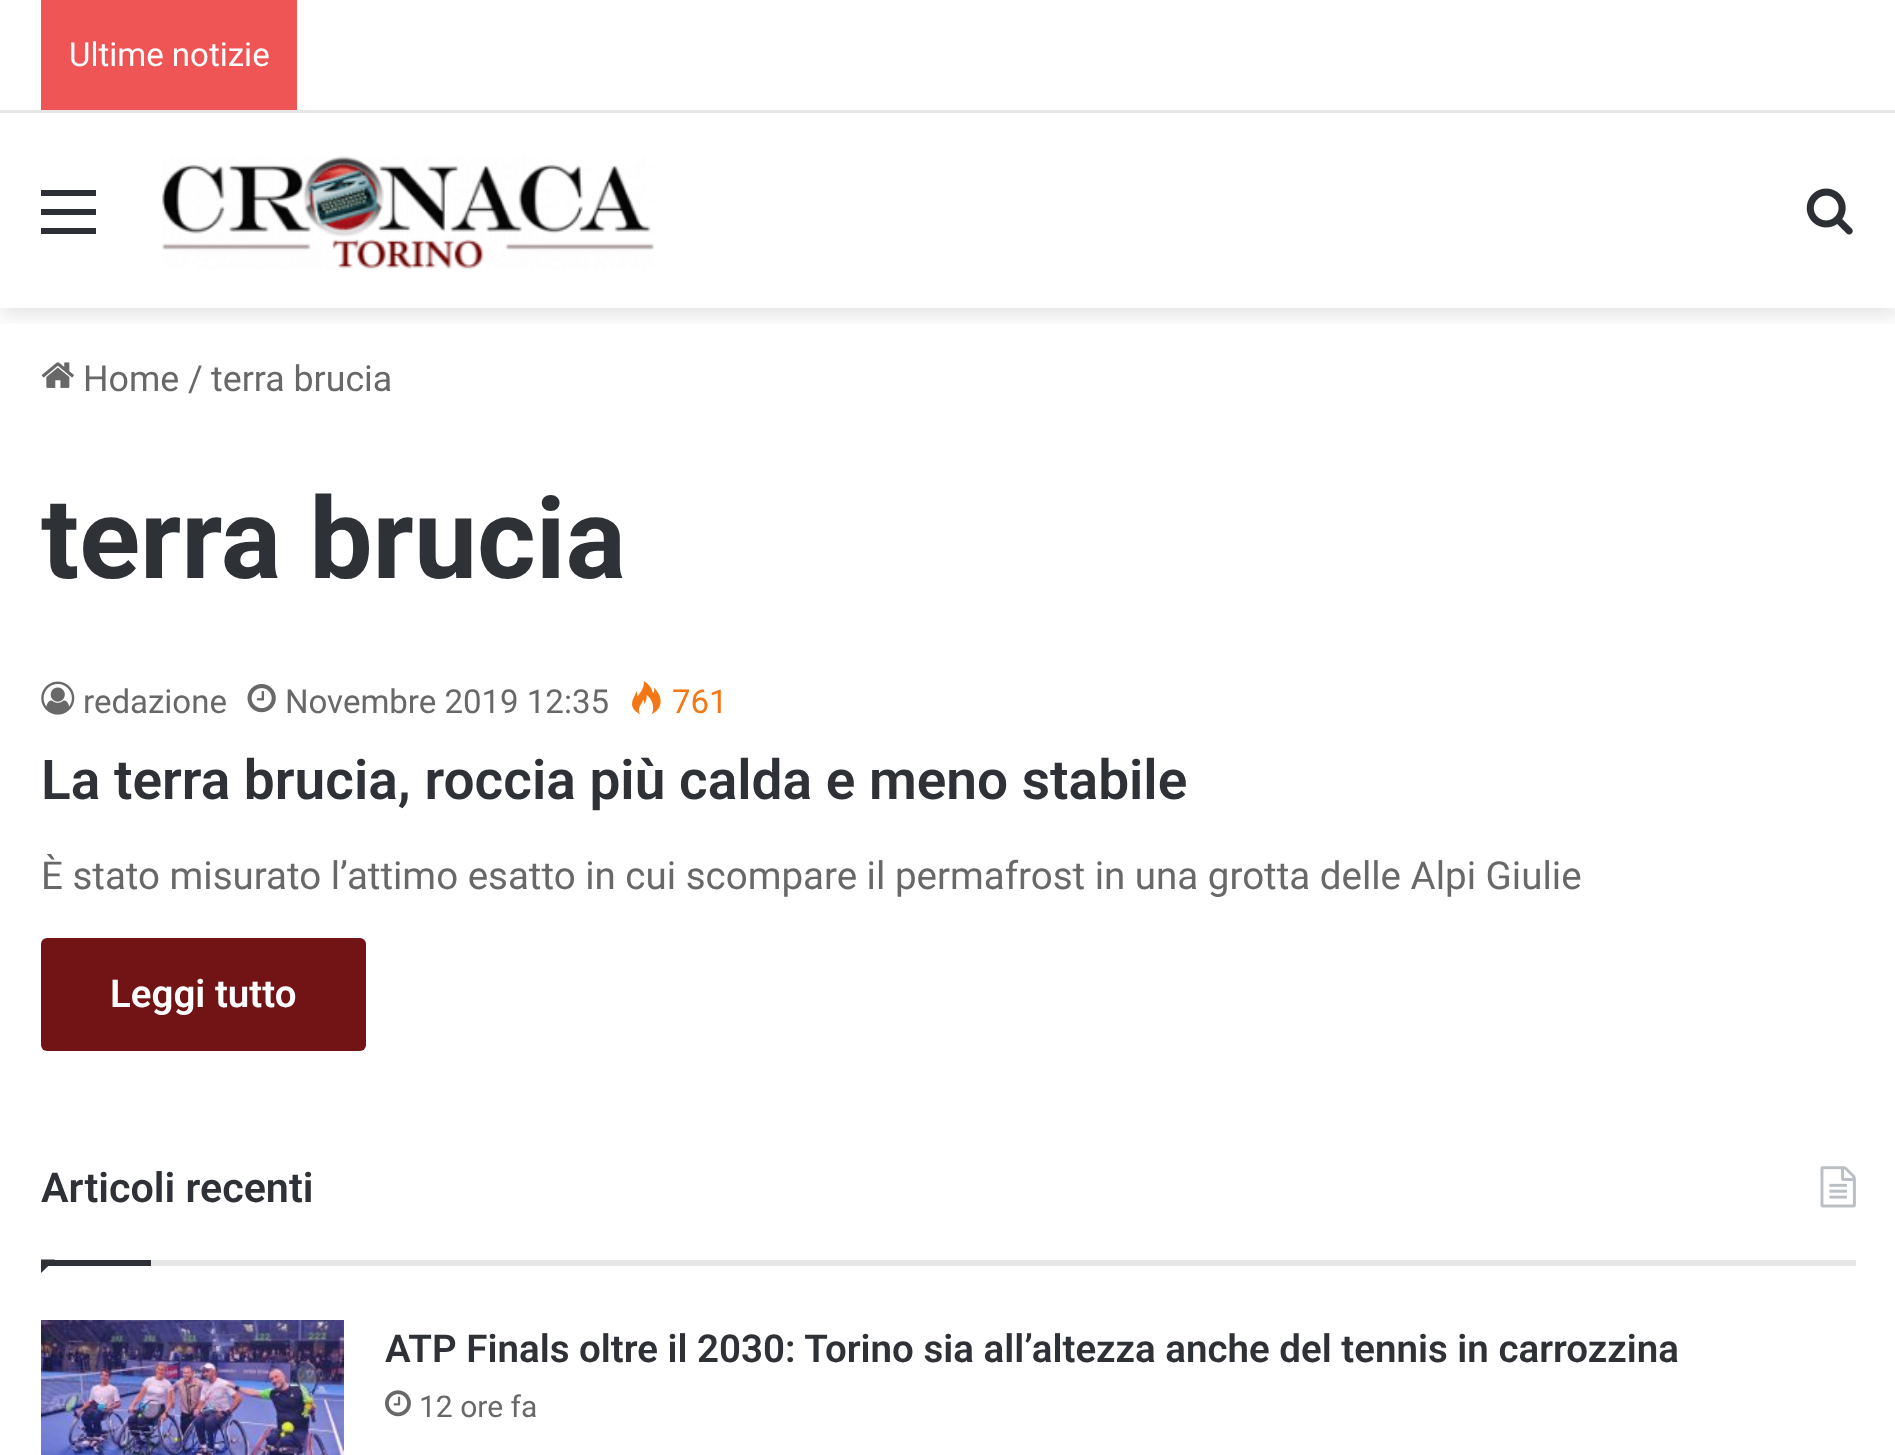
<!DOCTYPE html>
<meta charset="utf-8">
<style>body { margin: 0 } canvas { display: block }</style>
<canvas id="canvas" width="1895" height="1455"></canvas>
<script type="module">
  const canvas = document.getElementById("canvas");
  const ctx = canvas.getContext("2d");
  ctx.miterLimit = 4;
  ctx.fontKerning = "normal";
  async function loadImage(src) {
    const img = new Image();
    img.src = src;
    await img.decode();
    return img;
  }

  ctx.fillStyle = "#ffffff";
  ctx.fillRect(0, 0, 1895, 1455);
  ctx.save();
  ctx.beginPath();
  ctx.rect(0, 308, 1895, 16);
  ctx.clip();
  ctx.fillStyle = "rgba(0, 0, 0, 0.1)";
  ctx.filter = "blur(9.5px)";
  ctx.beginPath();
  ctx.rect(0, 121, 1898, 195);
  ctx.fill();
  ctx.filter = "none";
  ctx.restore();
  ctx.fillRect(12, 109, 1874, 1);
  ctx.fillStyle = "#e6e6e6";
  ctx.fillRect(0, 110, 1895, 3);
  ctx.fillStyle = "#f05555";
  ctx.fillRect(41, 0, 256, 110);
  ctx.font = "33px Roboto";
  ctx.fillStyle = "#ffffff";
  ctx.fillText("Ultime notizie", 69, 66);
  ctx.fillStyle = "#2c2f34";
  ctx.fillRect(41, 209, 55, 6);
  ctx.fillRect(41, 190, 55, 6);
  ctx.fillRect(41, 228, 55, 6);
  ctx.drawImage(await loadImage("img1.png"), 162, 156, 492, 114);
  ctx.drawImage(await loadImage("img2.png"), 1806, 188, 47, 47);
  ctx.drawImage(await loadImage("img3.png"), 41, 362, 33, 26);
  ctx.font = "35.75px Roboto";
  ctx.fillStyle = "#686868";
  ctx.fillText("Home", 83, 391);
  ctx.fillText("/", 188, 391);
  ctx.fillText("terra brucia", 211, 391);
  ctx.font = "bold 112.75px Roboto";
  ctx.fillStyle = "#2e3136";
  ctx.fillText("terra brucia", 41, 578);
  ctx.drawImage(await loadImage("img4.png"), 41, 681, 34, 34);
  ctx.font = "33px Roboto";
  ctx.fillStyle = "#686868";
  ctx.fillText("redazione", 83, 713);
  ctx.drawImage(await loadImage("img5.png"), 247, 684, 29, 29);
  ctx.fillText("Novembre 2019 12:35", 285, 713);
  ctx.drawImage(await loadImage("img6.png"), 632, 681, 29, 34);
  ctx.fillStyle = "#f47614";
  ctx.fillText("761", 672, 713);
  ctx.font = "600 55px Roboto";
  ctx.fillStyle = "#2e3136";
  ctx.fillText("La terra brucia, roccia più calda e meno stabile", 41, 799);
  ctx.font = "38.5px Roboto";
  ctx.fillStyle = "#686868";
  ctx.fillText("È stato misurato l’attimo esatto in cui scompare il permafrost in una grotta delle Alpi Giulie", 41, 889);
  ctx.fillStyle = "#721316";
  ctx.beginPath();
  ctx.roundRect(41, 938, 325, 113, 6);
  ctx.fill();
  ctx.font = "600 38.5px Roboto";
  ctx.fillStyle = "#ffffff";
  ctx.fillText("Leggi tutto", 110, 1007);
  ctx.fillStyle = "#e6e6e6";
  ctx.fillRect(151, 1260, 1705, 6);
  ctx.font = "600 41.25px Roboto";
  ctx.fillStyle = "#2e3136";
  ctx.fillText("Articoli recenti", 41, 1202);
  ctx.drawImage(await loadImage("img7.png"), 1820, 1166, 36, 42);
  ctx.beginPath();
  ctx.moveTo(41, 1259.5);
  ctx.lineTo(55, 1259.5);
  ctx.lineTo(41, 1273);
  ctx.closePath();
  ctx.fill();
  ctx.fillRect(41, 1260, 110, 6);
  ctx.drawImage(await loadImage("img8.png"), 41, 1320, 303, 135);
  ctx.font = "600 38.5px Roboto";
  ctx.fillText("ATP Finals oltre il 2030: Torino sia all’altezza anche del tennis in carrozzina", 385, 1362);
  ctx.drawImage(await loadImage("img9.png"), 385, 1390, 26, 27);
  ctx.font = "30px Roboto";
  ctx.fillStyle = "#686868";
  ctx.fillText("12 ore fa", 419, 1417);
</script>
